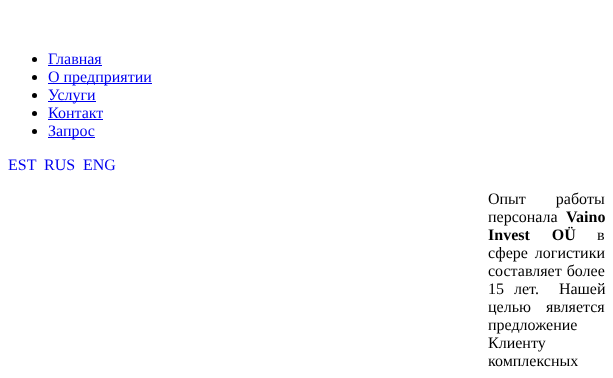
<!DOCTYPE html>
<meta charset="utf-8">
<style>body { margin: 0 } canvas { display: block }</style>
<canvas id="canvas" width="613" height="378"></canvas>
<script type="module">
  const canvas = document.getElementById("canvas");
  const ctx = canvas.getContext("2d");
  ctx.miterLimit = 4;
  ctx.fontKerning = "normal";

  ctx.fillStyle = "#ffffff";
  ctx.fillRect(0, 0, 613, 378);
  ctx.fillStyle = "#000000";
  ctx.beginPath();
  ctx.arc(34.5, 59.5, 2.5, 0, Math.PI * 2);
  ctx.fill();
  ctx.font = "16px Liberation Serif";
  ctx.fillStyle = "#0000ee";
  ctx.fillText("Главная", 48, 64);
  ctx.fillRect(48, 65, 54, 1);
  ctx.fillStyle = "#000000";
  ctx.beginPath();
  ctx.arc(34.5, 77.5, 2.5, 0, Math.PI * 2);
  ctx.fill();
  ctx.fillStyle = "#0000ee";
  ctx.fillRect(48, 83, 104, 1);
  ctx.fillText("О предприятии", 48, 82);
  ctx.fillStyle = "#000000";
  ctx.beginPath();
  ctx.arc(34.5, 95.5, 2.5, 0, Math.PI * 2);
  ctx.fill();
  ctx.fillStyle = "#0000ee";
  ctx.fillRect(48, 101, 48, 1);
  ctx.fillText("Услуги", 48, 100);
  ctx.fillStyle = "#000000";
  ctx.beginPath();
  ctx.arc(34.5, 113.5, 2.5, 0, Math.PI * 2);
  ctx.fill();
  ctx.fillStyle = "#0000ee";
  ctx.fillText("Контакт", 48, 118);
  ctx.fillRect(48, 119, 55, 1);
  ctx.fillStyle = "#000000";
  ctx.beginPath();
  ctx.arc(34.5, 131.5, 2.5, 0, Math.PI * 2);
  ctx.fill();
  ctx.fillStyle = "#0000ee";
  ctx.fillRect(48, 137, 47, 1);
  ctx.fillText("Запрос", 48, 136);
  ctx.fillText("EST", 8, 170);
  ctx.fillText("RUS", 44, 170);
  ctx.fillText("ENG", 83, 170);
  ctx.wordSpacing = "26px";
  ctx.fillStyle = "#000000";
  ctx.fillText("Опыт работы", 488, 204);
  ctx.wordSpacing = "0px";
  ctx.fillText("персонала", 488, 222);
  ctx.font = "bold 16px Liberation Serif";
  ctx.fillText("Vaino", 566, 222);
  ctx.wordSpacing = "18px";
  ctx.fillText("Invest OÜ", 488, 240);
  ctx.wordSpacing = "0px";
  ctx.font = "16px Liberation Serif";
  ctx.fillText("в", 597, 240);
  ctx.wordSpacing = "3px";
  ctx.fillText("сфере логистики", 488, 258);
  ctx.wordSpacing = "1px";
  ctx.fillText("составляет более", 488, 276);
  ctx.wordSpacing = "6px";
  ctx.fillText("15 лет.  Нашей", 488, 294);
  ctx.wordSpacing = "11px";
  ctx.fillText("целью является", 488, 312);
  ctx.wordSpacing = "0px";
  ctx.fillText("предложение", 488, 330);
  ctx.fillText("Клиенту", 488, 348);
  ctx.fillText("комплексных", 488, 366);
</script>
